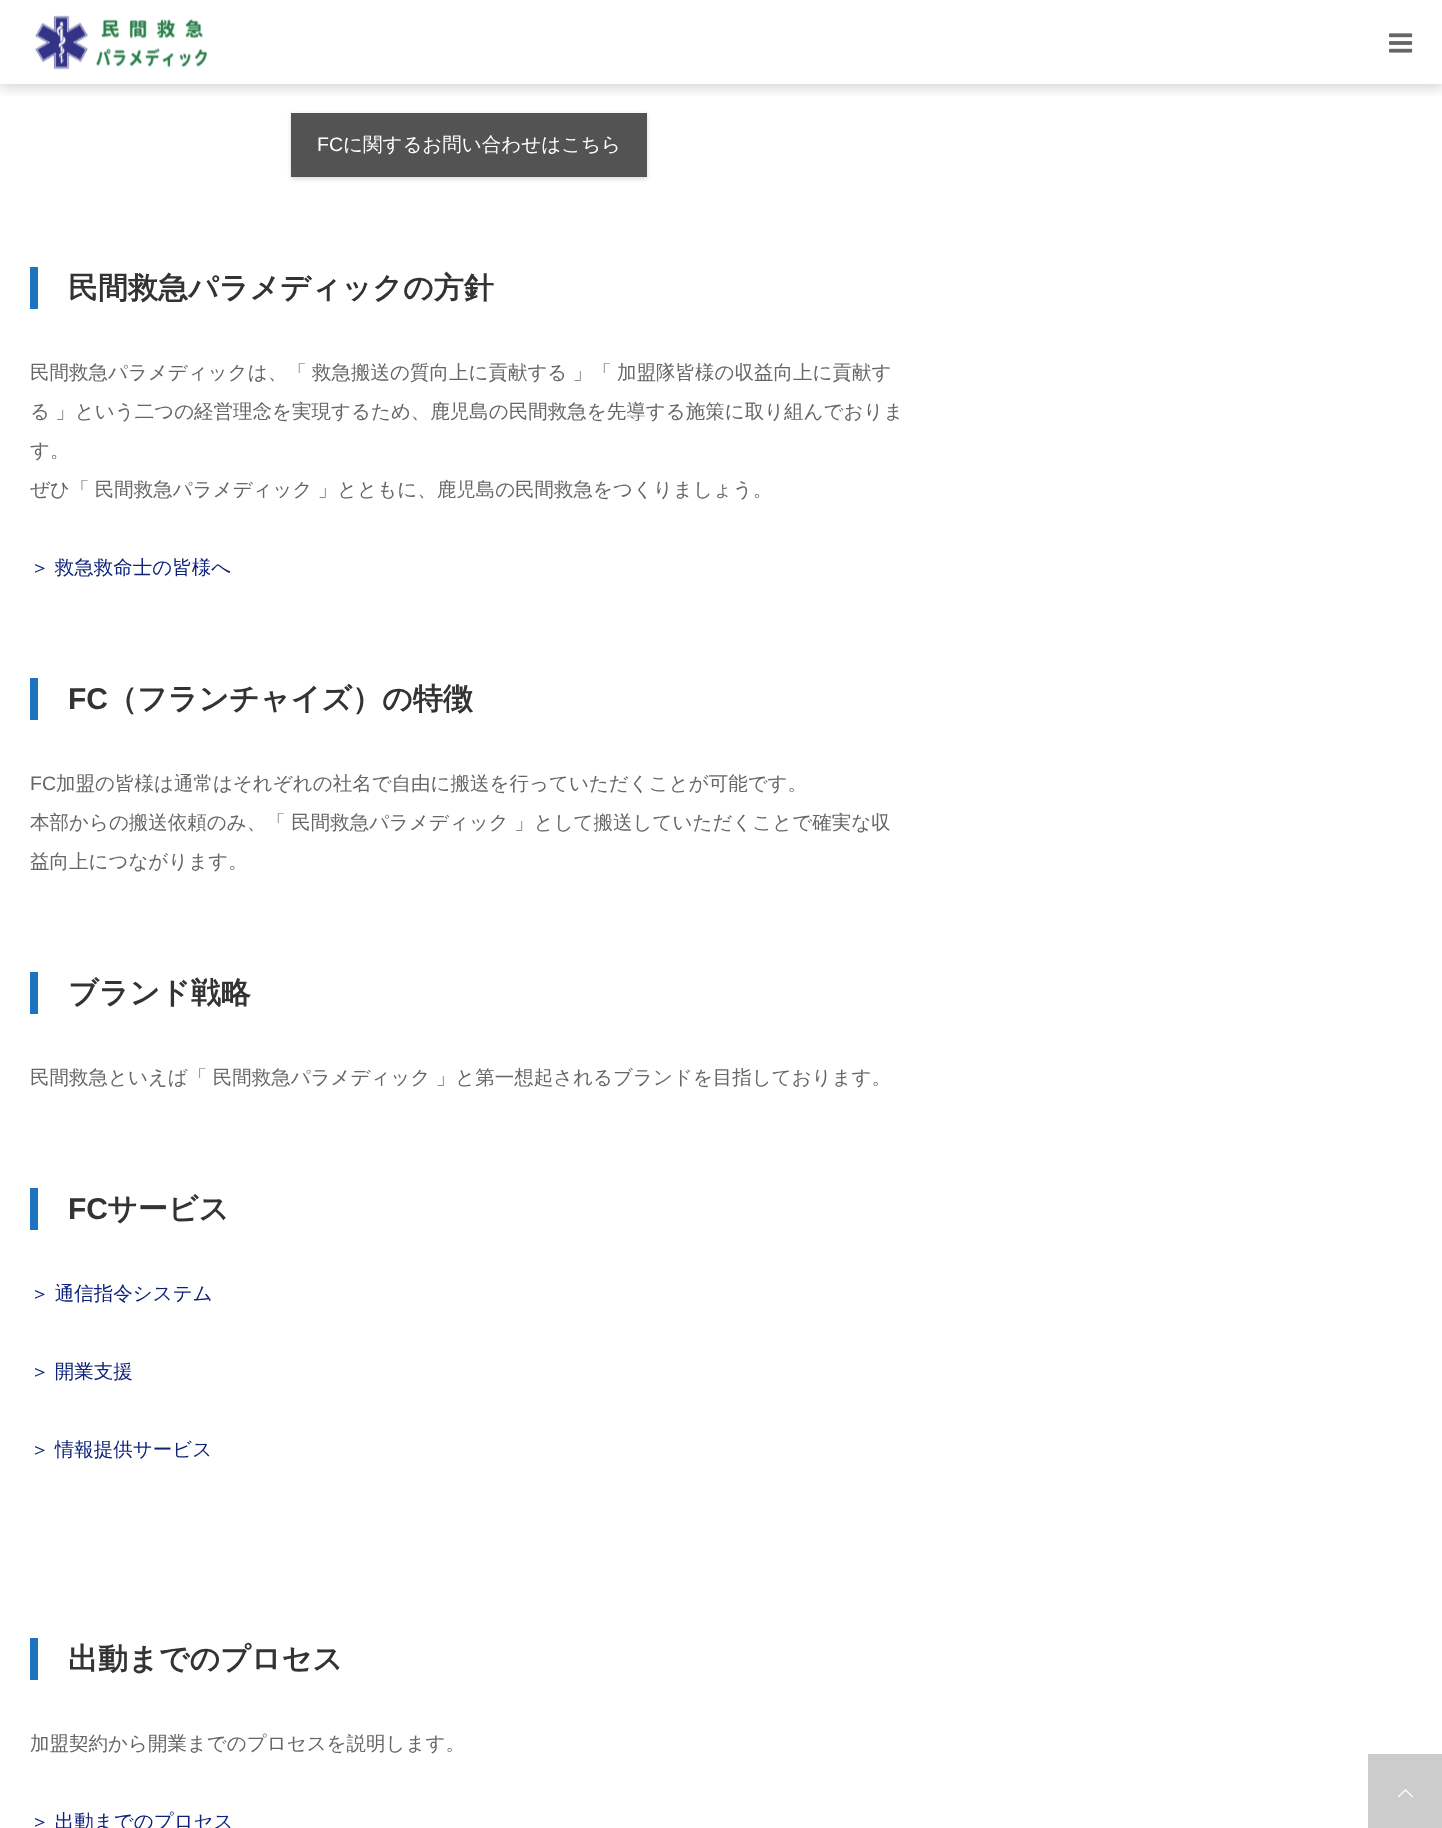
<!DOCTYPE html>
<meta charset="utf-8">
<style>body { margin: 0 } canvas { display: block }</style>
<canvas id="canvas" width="1442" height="1828"></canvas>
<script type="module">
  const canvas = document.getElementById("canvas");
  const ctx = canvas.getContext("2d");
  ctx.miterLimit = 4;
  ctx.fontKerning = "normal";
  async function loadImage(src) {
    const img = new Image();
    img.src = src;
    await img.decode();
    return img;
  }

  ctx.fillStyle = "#ffffff";
  ctx.fillRect(0, 0, 1442, 1828);
  ctx.save();
  ctx.beginPath();
  ctx.rect(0, 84, 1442, 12);
  ctx.clip();
  ctx.fillStyle = "rgba(0, 0, 0, 0.2)";
  ctx.filter = "blur(7.5px)";
  ctx.beginPath();
  ctx.rect(-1, -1, 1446, 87);
  ctx.fill();
  ctx.filter = "none";
  ctx.restore();
  ctx.drawImage(await loadImage("img1.png"), 35, 15, 173, 55);
  ctx.drawImage(await loadImage("img2.png"), 1389, 33, 24, 20);
  ctx.fillStyle = "rgba(0, 0, 0, 0.15)";
  ctx.filter = "blur(2px)";
  ctx.beginPath();
  ctx.rect(291, 114, 356, 65);
  ctx.fill();
  ctx.filter = "none";
  ctx.fillStyle = "#535353";
  ctx.fillRect(291, 113, 356, 64);
  ctx.font = "19.5px Liberation Sans";
  ctx.fillStyle = "#ffffff";
  ctx.fillText("FC", 317, 151);
  ctx.font = "500 19.5px WenQuanYi Zen Hei";
  ctx.fillText("に関するお問い合わせはこちら", 343, 151);
  ctx.fillStyle = "#1e73be";
  ctx.fillRect(30, 267, 8, 42);
  ctx.font = "bold 30px WenQuanYi Zen Hei";
  ctx.fillStyle = "#333333";
  ctx.fillText("民間救急パラメディックの方針", 68, 298);
  ctx.wordSpacing = "-0.5px";
  ctx.font = "500 19.5px WenQuanYi Zen Hei";
  ctx.fillStyle = "#666666";
  ctx.fillText("民間救急パラメディックは、「 救急搬送の質向上に貢献する 」「 加盟隊皆様の収益向上に貢献す", 30, 379);
  ctx.fillText("る 」という二つの経営理念を実現するため、鹿児島の民間救急を先導する施策に取り組んでおりま", 30, 418);
  ctx.wordSpacing = "0px";
  ctx.fillText("す。", 30, 457);
  ctx.wordSpacing = "-0.5px";
  ctx.fillText("ぜひ「 民間救急パラメディック 」とともに、鹿児島の民間救急をつくりましょう。", 30, 496);
  ctx.fillStyle = "#0d2279";
  ctx.fillText("＞ 救急救命士の皆様へ", 30, 574);
  ctx.fillStyle = "#1e73be";
  ctx.fillRect(30, 678, 8, 42);
  ctx.wordSpacing = "0px";
  ctx.font = "bold 30px Liberation Sans";
  ctx.fillStyle = "#333333";
  ctx.fillText("FC", 68, 709);
  ctx.font = "bold 30px WenQuanYi Zen Hei";
  ctx.fillText("（フランチャイズ）の特徴", 107, 709);
  ctx.font = "19.5px Liberation Sans";
  ctx.fillStyle = "#666666";
  ctx.fillText("FC", 30, 790);
  ctx.font = "500 19.5px WenQuanYi Zen Hei";
  ctx.fillText("加盟の皆様は通常はそれぞれの社名で自由に搬送を行っていただくことが可能です。", 56, 790);
  ctx.wordSpacing = "-0.5px";
  ctx.fillText("本部からの搬送依頼のみ、「 民間救急パラメディック 」として搬送していただくことで確実な収", 30, 829);
  ctx.wordSpacing = "0px";
  ctx.fillText("益向上につながります。", 30, 868);
  ctx.fillStyle = "#1e73be";
  ctx.fillRect(30, 972, 8, 42);
  ctx.font = "bold 30px WenQuanYi Zen Hei";
  ctx.fillStyle = "#333333";
  ctx.fillText("ブランド戦略", 68, 1003);
  ctx.wordSpacing = "-0.5px";
  ctx.font = "500 19.5px WenQuanYi Zen Hei";
  ctx.fillStyle = "#666666";
  ctx.fillText("民間救急といえば「 民間救急パラメディック 」と第一想起されるブランドを目指しております。", 30, 1084);
  ctx.fillStyle = "#1e73be";
  ctx.fillRect(30, 1188, 8, 42);
  ctx.wordSpacing = "0px";
  ctx.font = "bold 30px Liberation Sans";
  ctx.fillStyle = "#333333";
  ctx.fillText("FC", 68, 1219);
  ctx.font = "bold 30px WenQuanYi Zen Hei";
  ctx.fillText("サービス", 107, 1219);
  ctx.wordSpacing = "-0.5px";
  ctx.font = "500 19.5px WenQuanYi Zen Hei";
  ctx.fillStyle = "#0d2279";
  ctx.fillText("＞ 通信指令システム", 30, 1300);
  ctx.fillText("＞ 開業支援", 30, 1378);
  ctx.fillText("＞ 情報提供サービス", 30, 1456);
  ctx.fillStyle = "#1e73be";
  ctx.fillRect(30, 1638, 8, 42);
  ctx.wordSpacing = "0px";
  ctx.font = "bold 30px WenQuanYi Zen Hei";
  ctx.fillStyle = "#333333";
  ctx.fillText("出動までのプロセス", 68, 1669);
  ctx.font = "500 19.5px WenQuanYi Zen Hei";
  ctx.fillStyle = "#666666";
  ctx.fillText("加盟契約から開業までのプロセスを説明します。", 30, 1750);
  ctx.wordSpacing = "-0.5px";
  ctx.fillStyle = "#0d2279";
  ctx.fillText("＞ 出動までのプロセス", 30, 1828);
  ctx.fillStyle = "#cccccc";
  ctx.fillRect(1368, 1754, 74, 74);
  ctx.drawImage(await loadImage("img3.png"), 1397, 1789, 17, 9);
</script>
